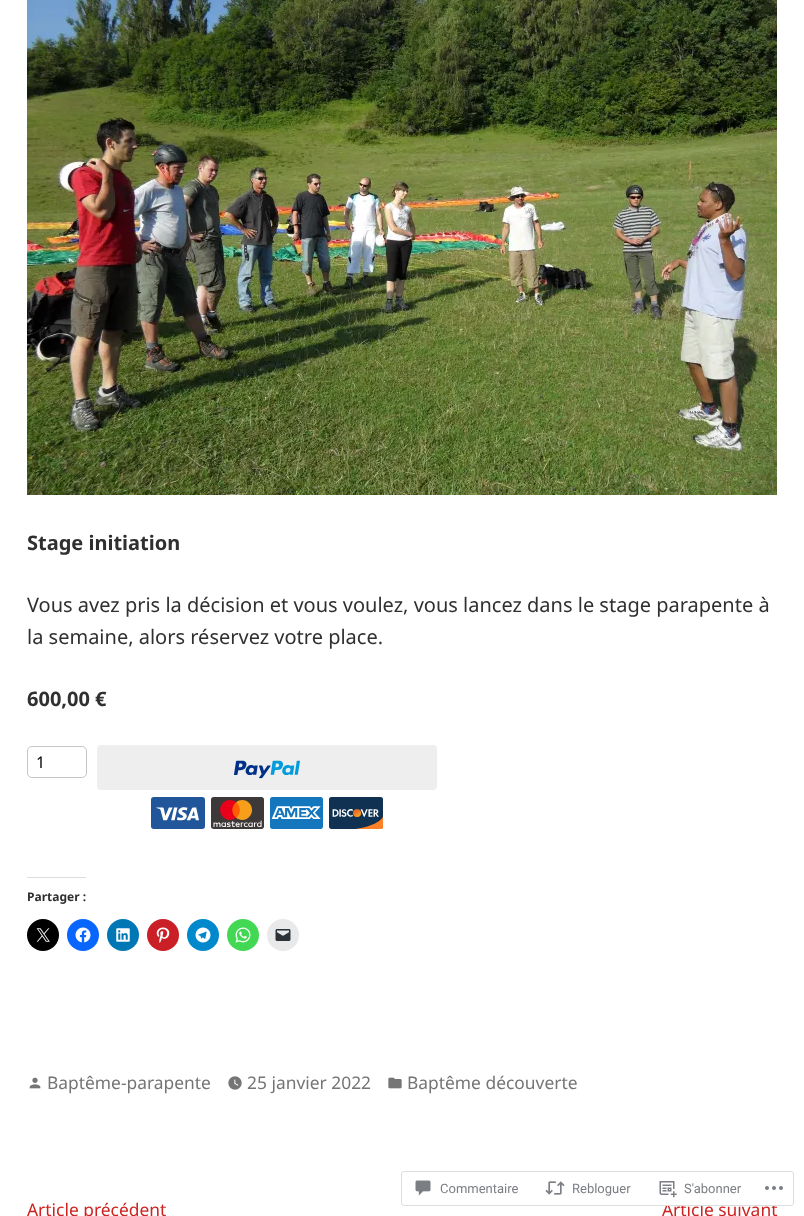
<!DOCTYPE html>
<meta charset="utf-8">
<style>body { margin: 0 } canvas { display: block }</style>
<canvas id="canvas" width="804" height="1216"></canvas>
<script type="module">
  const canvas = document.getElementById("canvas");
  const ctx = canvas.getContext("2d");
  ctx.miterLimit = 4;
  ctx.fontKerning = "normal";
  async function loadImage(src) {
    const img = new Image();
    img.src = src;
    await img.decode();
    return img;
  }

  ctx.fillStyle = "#ffffff";
  ctx.fillRect(0, 0, 804, 1216);
  ctx.drawImage(await loadImage("img1.png"), 27, 0, 750, 495);
  ctx.font = "bold 20px Noto Sans";
  ctx.fillStyle = "#303030";
  ctx.fillText("Stage initiation", 27, 550);
  ctx.font = "20px Noto Sans";
  ctx.fillText("Vous avez pris la décision et vous voulez, vous lancez dans le stage parapente à", 27, 612);
  ctx.fillText("la semaine, alors réservez votre place.", 27, 644);
  ctx.font = "bold 20px Noto Sans";
  ctx.fillText("600,00 €", 27, 706);
  ctx.beginPath();
  ctx.roundRect(27.5, 746.5, 59, 31, 4.5);
  ctx.strokeStyle = "#c5c5c5";
  ctx.stroke();
  ctx.font = "16px Noto Sans";
  ctx.fillStyle = "#000000";
  ctx.fillText("1", 36, 768);
  ctx.drawImage(await loadImage("img2.png"), 97, 745, 340, 84);
  ctx.fillStyle = "#dcdcde";
  ctx.fillRect(27, 877, 59, 1);
  ctx.font = "bold 12px Noto Sans";
  ctx.fillStyle = "#303030";
  ctx.fillText("Partager :", 27, 901);
  ctx.fillStyle = "#000000";
  ctx.beginPath();
  ctx.arc(43, 935, 16, 0, Math.PI * 2);
  ctx.fill();
  ctx.drawImage(await loadImage("img3.png"), 36, 928, 14, 14);
  ctx.fillStyle = "#0866ff";
  ctx.beginPath();
  ctx.arc(83, 935, 16, 0, Math.PI * 2);
  ctx.fill();
  ctx.drawImage(await loadImage("img4.png"), 75, 927, 16, 16);
  ctx.fillStyle = "#0077b5";
  ctx.beginPath();
  ctx.arc(123, 935, 16, 0, Math.PI * 2);
  ctx.fill();
  ctx.drawImage(await loadImage("img5.png"), 116, 928, 14, 14);
  ctx.fillStyle = "#ca1f27";
  ctx.beginPath();
  ctx.arc(163, 935, 16, 0, Math.PI * 2);
  ctx.fill();
  ctx.drawImage(await loadImage("img6.png"), 156, 927, 14, 16);
  ctx.fillStyle = "#0088cc";
  ctx.beginPath();
  ctx.arc(203, 935, 16, 0, Math.PI * 2);
  ctx.fill();
  ctx.drawImage(await loadImage("img7.png"), 195, 927, 16, 16);
  ctx.fillStyle = "#43d854";
  ctx.beginPath();
  ctx.arc(243, 935, 16, 0, Math.PI * 2);
  ctx.fill();
  ctx.drawImage(await loadImage("img8.png"), 235, 927, 16, 16);
  ctx.fillStyle = "#e9e9e9";
  ctx.beginPath();
  ctx.arc(283, 935, 16, 0, Math.PI * 2);
  ctx.fill();
  ctx.drawImage(await loadImage("img9.png"), 275, 929, 16, 12);
  ctx.drawImage(await loadImage("img10.png"), 29, 1077, 12, 12);
  ctx.font = "17.4px Noto Sans";
  ctx.fillStyle = "#757575";
  ctx.fillText("Baptême-parapente", 47, 1089);
  ctx.drawImage(await loadImage("img11.png"), 228, 1076, 14, 14);
  ctx.fillText("25 janvier 2022", 247, 1089);
  ctx.drawImage(await loadImage("img12.png"), 388, 1077, 14, 12);
  ctx.fillText("Baptême découverte", 407, 1089);
  ctx.fillStyle = "#cd2220";
  ctx.fillText("Article précédent", 27, 1216);
  ctx.fillText("Article suivant", 662, 1216);
  ctx.fillStyle = "rgba(255, 255, 255, 0.98)";
  ctx.beginPath();
  ctx.roundRect(401, 1171, 393, 35, 3);
  ctx.fill();
  ctx.beginPath();
  ctx.roundRect(401.5, 1171.5, 392, 34, 2.5);
  ctx.strokeStyle = "rgba(220, 220, 222, 0.98)";
  ctx.stroke();
  ctx.drawImage(await loadImage("img13.png"), 415, 1180, 16, 16);
  ctx.font = "13px Roboto";
  ctx.fillStyle = "#7b7f85";
  ctx.fillText("Commentaire", 440, 1193);
  ctx.drawImage(await loadImage("img14.png"), 545, 1181, 20, 14);
  ctx.fillText("Rebloguer", 572, 1193);
  ctx.drawImage(await loadImage("img15.png"), 659, 1181, 18, 17);
  ctx.fillText("S'abonner", 684, 1193);
  ctx.drawImage(await loadImage("img16.png"), 765, 1186, 18, 4);
</script>
